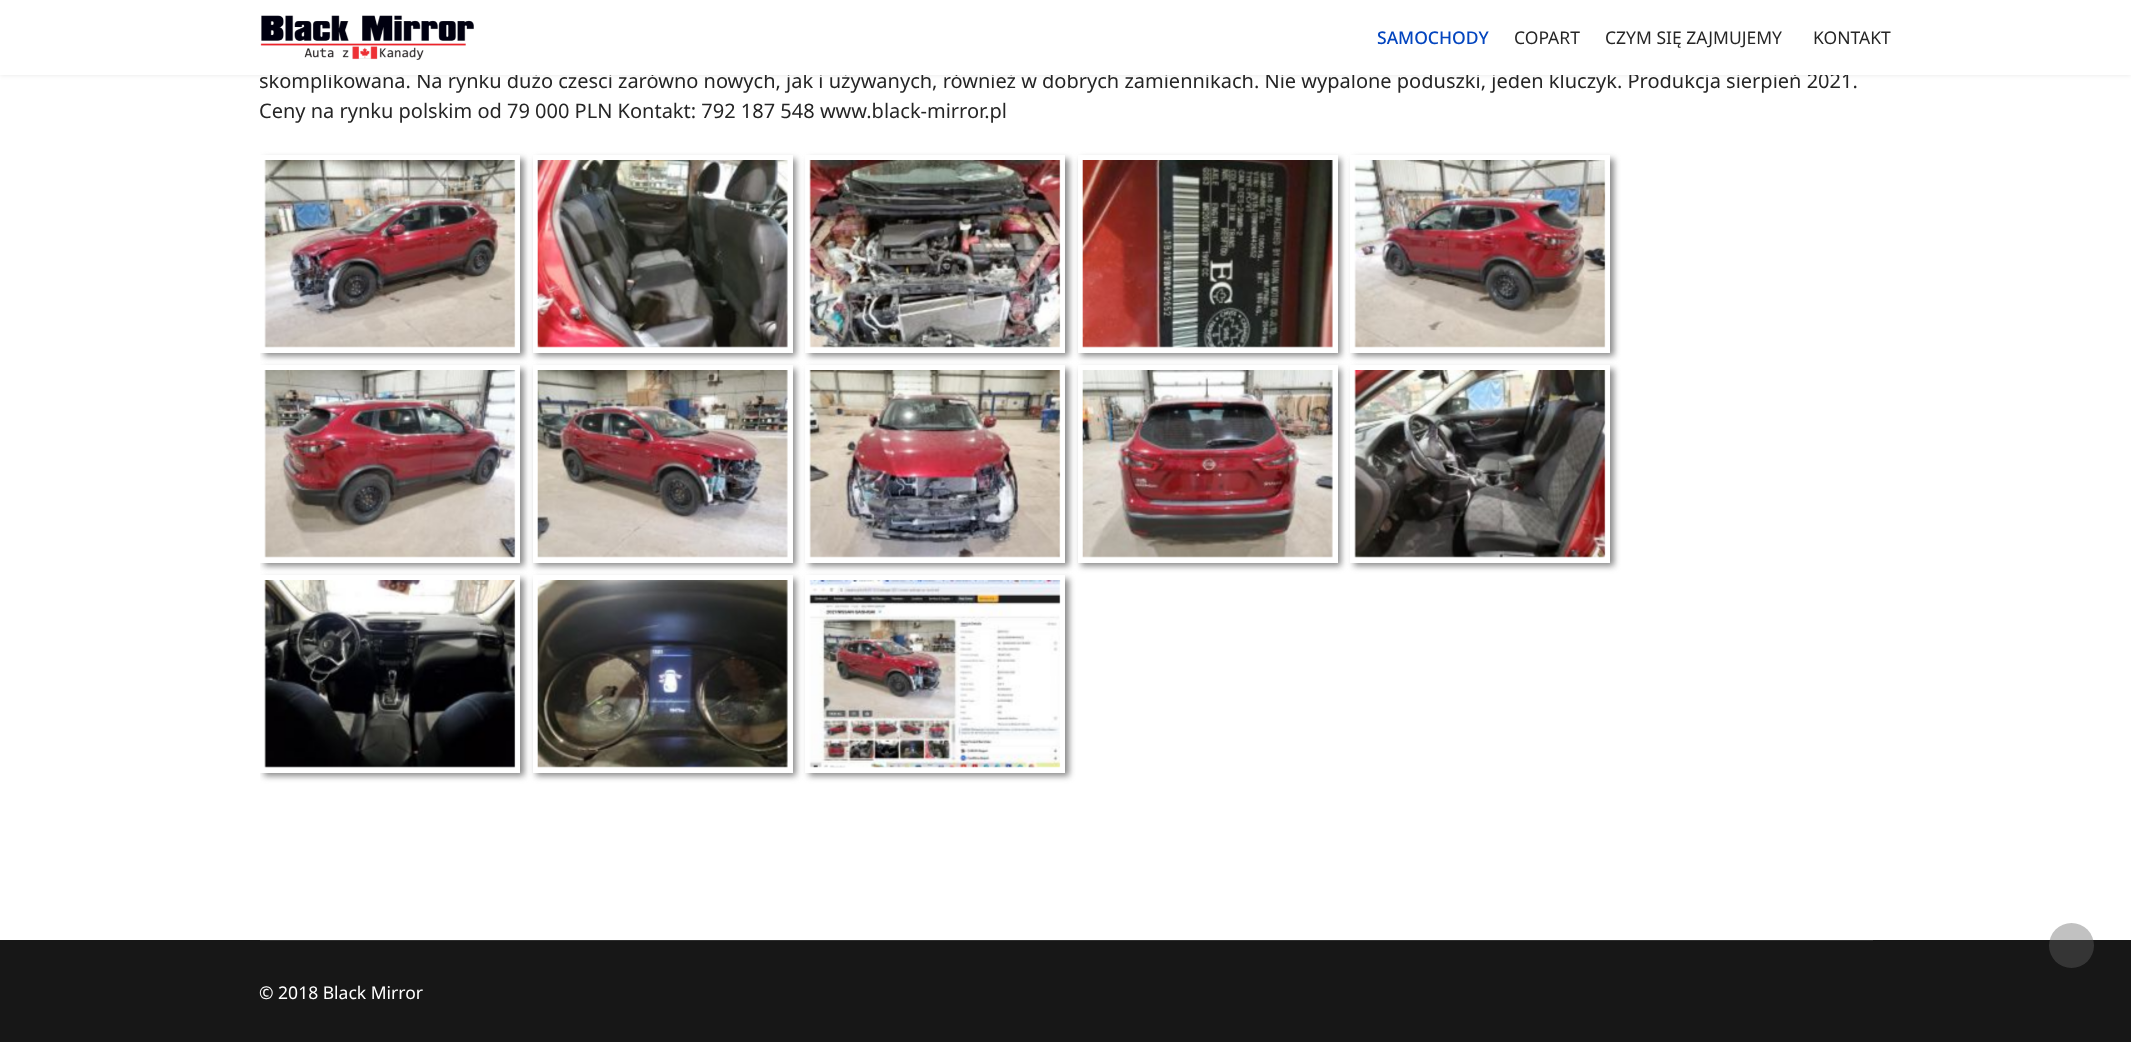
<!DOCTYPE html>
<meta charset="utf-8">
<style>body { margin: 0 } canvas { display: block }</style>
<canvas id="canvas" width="2131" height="1042"></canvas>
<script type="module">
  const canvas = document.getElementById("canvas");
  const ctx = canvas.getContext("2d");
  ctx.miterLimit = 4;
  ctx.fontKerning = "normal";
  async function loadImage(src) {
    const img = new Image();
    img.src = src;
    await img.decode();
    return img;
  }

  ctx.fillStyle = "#ffffff";
  ctx.fillRect(0, 0, 2131, 1042);
  ctx.fillStyle = "rgba(0, 0, 0, 0.1)";
  ctx.filter = "blur(2.5px)";
  ctx.beginPath();
  ctx.rect(0, 0, 2131, 75);
  ctx.fill();
  ctx.filter = "none";
  ctx.font = "20px Noto Sans";
  ctx.fillStyle = "#252525";
  ctx.fillText("skomplikowana. Na rynku dużo czesci zarówno nowych, jak i używanych, również w dobrych zamiennikach. Nie wypalone poduszki, jeden kluczyk. Produkcja sierpień 2021.", 259, 88);
  ctx.fillStyle = "#ffffff";
  ctx.fillRect(0, 0, 2131, 75);
  ctx.drawImage(await loadImage("img1.png"), 260, 15, 214, 45);
  ctx.font = "500 17.5px Noto Sans";
  ctx.fillStyle = "#0345bf";
  ctx.fillText("SAMOCHODY", 1377, 44);
  ctx.font = "17.5px Noto Sans";
  ctx.fillStyle = "#252525";
  ctx.fillText("COPART", 1514, 44);
  ctx.fillText("CZYM SIĘ ZAJMUJEMY", 1605, 44);
  ctx.fillText("KONTAKT", 1813, 44);
  ctx.font = "20px Noto Sans";
  ctx.fillText("Ceny na rynku polskim od 79 000 PLN Kontakt: 792 187 548 www.black-mirror.pl", 259, 118);
  ctx.save();
  ctx.beginPath();
  ctx.rect(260, 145, 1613, 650);
  ctx.clip();
  ctx.fillStyle = "#888888";
  ctx.filter = "blur(3px)";
  ctx.beginPath();
  ctx.rect(264, 159, 260, 197);
  ctx.fill();
  ctx.filter = "none";
  ctx.restore();
  ctx.fillStyle = "#ffffff";
  ctx.fillRect(260, 155, 260, 198);
  ctx.drawImage(await loadImage("img2.png"), 264, 160, 252, 188);
  ctx.fillStyle = "#888888";
  ctx.filter = "blur(3px)";
  ctx.beginPath();
  ctx.rect(536, 159, 260, 197);
  ctx.fill();
  ctx.filter = "none";
  ctx.fillStyle = "#ffffff";
  ctx.fillRect(533, 155, 260, 198);
  ctx.drawImage(await loadImage("img3.png"), 537, 160, 251, 188);
  ctx.fillStyle = "#888888";
  ctx.filter = "blur(3px)";
  ctx.beginPath();
  ctx.rect(809, 159, 260, 197);
  ctx.fill();
  ctx.filter = "none";
  ctx.fillStyle = "#ffffff";
  ctx.fillRect(805, 155, 260, 198);
  ctx.drawImage(await loadImage("img4.png"), 809, 160, 252, 188);
  ctx.fillStyle = "#888888";
  ctx.filter = "blur(3px)";
  ctx.beginPath();
  ctx.rect(1081, 159, 260, 197);
  ctx.fill();
  ctx.filter = "none";
  ctx.fillStyle = "#ffffff";
  ctx.fillRect(1078, 155, 260, 198);
  ctx.drawImage(await loadImage("img5.png"), 1082, 160, 251, 188);
  ctx.fillStyle = "#888888";
  ctx.filter = "blur(3px)";
  ctx.beginPath();
  ctx.rect(1354, 159, 260, 197);
  ctx.fill();
  ctx.filter = "none";
  ctx.fillStyle = "#ffffff";
  ctx.fillRect(1350, 155, 260, 198);
  ctx.drawImage(await loadImage("img6.png"), 1354, 160, 252, 188);
  ctx.save();
  ctx.beginPath();
  ctx.rect(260, 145, 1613, 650);
  ctx.clip();
  ctx.fillStyle = "#888888";
  ctx.filter = "blur(3px)";
  ctx.beginPath();
  ctx.rect(264, 369, 260, 197);
  ctx.fill();
  ctx.filter = "none";
  ctx.restore();
  ctx.fillRect(260, 365, 260, 198);
  ctx.drawImage(await loadImage("img7.png"), 264, 370, 252, 188);
  ctx.fillStyle = "#888888";
  ctx.filter = "blur(3px)";
  ctx.beginPath();
  ctx.rect(536, 369, 260, 197);
  ctx.fill();
  ctx.filter = "none";
  ctx.fillStyle = "#ffffff";
  ctx.fillRect(533, 365, 260, 198);
  ctx.drawImage(await loadImage("img8.png"), 537, 370, 251, 188);
  ctx.fillStyle = "#888888";
  ctx.filter = "blur(3px)";
  ctx.beginPath();
  ctx.rect(809, 369, 260, 197);
  ctx.fill();
  ctx.filter = "none";
  ctx.fillStyle = "#ffffff";
  ctx.fillRect(805, 365, 260, 198);
  ctx.drawImage(await loadImage("img9.png"), 809, 370, 252, 188);
  ctx.fillStyle = "#888888";
  ctx.filter = "blur(3px)";
  ctx.beginPath();
  ctx.rect(1081, 369, 260, 197);
  ctx.fill();
  ctx.filter = "none";
  ctx.fillStyle = "#ffffff";
  ctx.fillRect(1078, 365, 260, 198);
  ctx.drawImage(await loadImage("img10.png"), 1082, 370, 251, 188);
  ctx.fillStyle = "#888888";
  ctx.filter = "blur(3px)";
  ctx.beginPath();
  ctx.rect(1354, 369, 260, 197);
  ctx.fill();
  ctx.filter = "none";
  ctx.fillStyle = "#ffffff";
  ctx.fillRect(1350, 365, 260, 198);
  ctx.drawImage(await loadImage("img11.png"), 1354, 370, 252, 188);
  ctx.save();
  ctx.beginPath();
  ctx.rect(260, 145, 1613, 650);
  ctx.clip();
  ctx.fillStyle = "#888888";
  ctx.filter = "blur(3px)";
  ctx.beginPath();
  ctx.rect(264, 579, 260, 197);
  ctx.fill();
  ctx.filter = "none";
  ctx.restore();
  ctx.fillRect(260, 575, 260, 198);
  ctx.drawImage(await loadImage("img12.png"), 264, 580, 252, 188);
  ctx.fillStyle = "#888888";
  ctx.filter = "blur(3px)";
  ctx.beginPath();
  ctx.rect(536, 579, 260, 197);
  ctx.fill();
  ctx.filter = "none";
  ctx.fillStyle = "#ffffff";
  ctx.fillRect(533, 575, 260, 198);
  ctx.drawImage(await loadImage("img13.png"), 537, 580, 251, 188);
  ctx.fillStyle = "#888888";
  ctx.filter = "blur(3px)";
  ctx.beginPath();
  ctx.rect(809, 579, 260, 197);
  ctx.fill();
  ctx.filter = "none";
  ctx.fillStyle = "#ffffff";
  ctx.fillRect(805, 575, 260, 198);
  ctx.drawImage(await loadImage("img14.png"), 809, 580, 252, 188);
  ctx.fillStyle = "#171717";
  ctx.fillRect(0, 940, 2131, 102);
  ctx.fillStyle = "#2e2e2e";
  ctx.fillRect(260, 940, 1613, 1);
  ctx.font = "17.5px Noto Sans";
  ctx.fillStyle = "#ffffff";
  ctx.fillText("© 2018 Black Mirror", 259, 999);
  ctx.fillStyle = "rgba(100, 100, 100, 0.4)";
  ctx.beginPath();
  ctx.arc(2071.5, 945.5, 22.5, 0, Math.PI * 2);
  ctx.fill();
</script>
